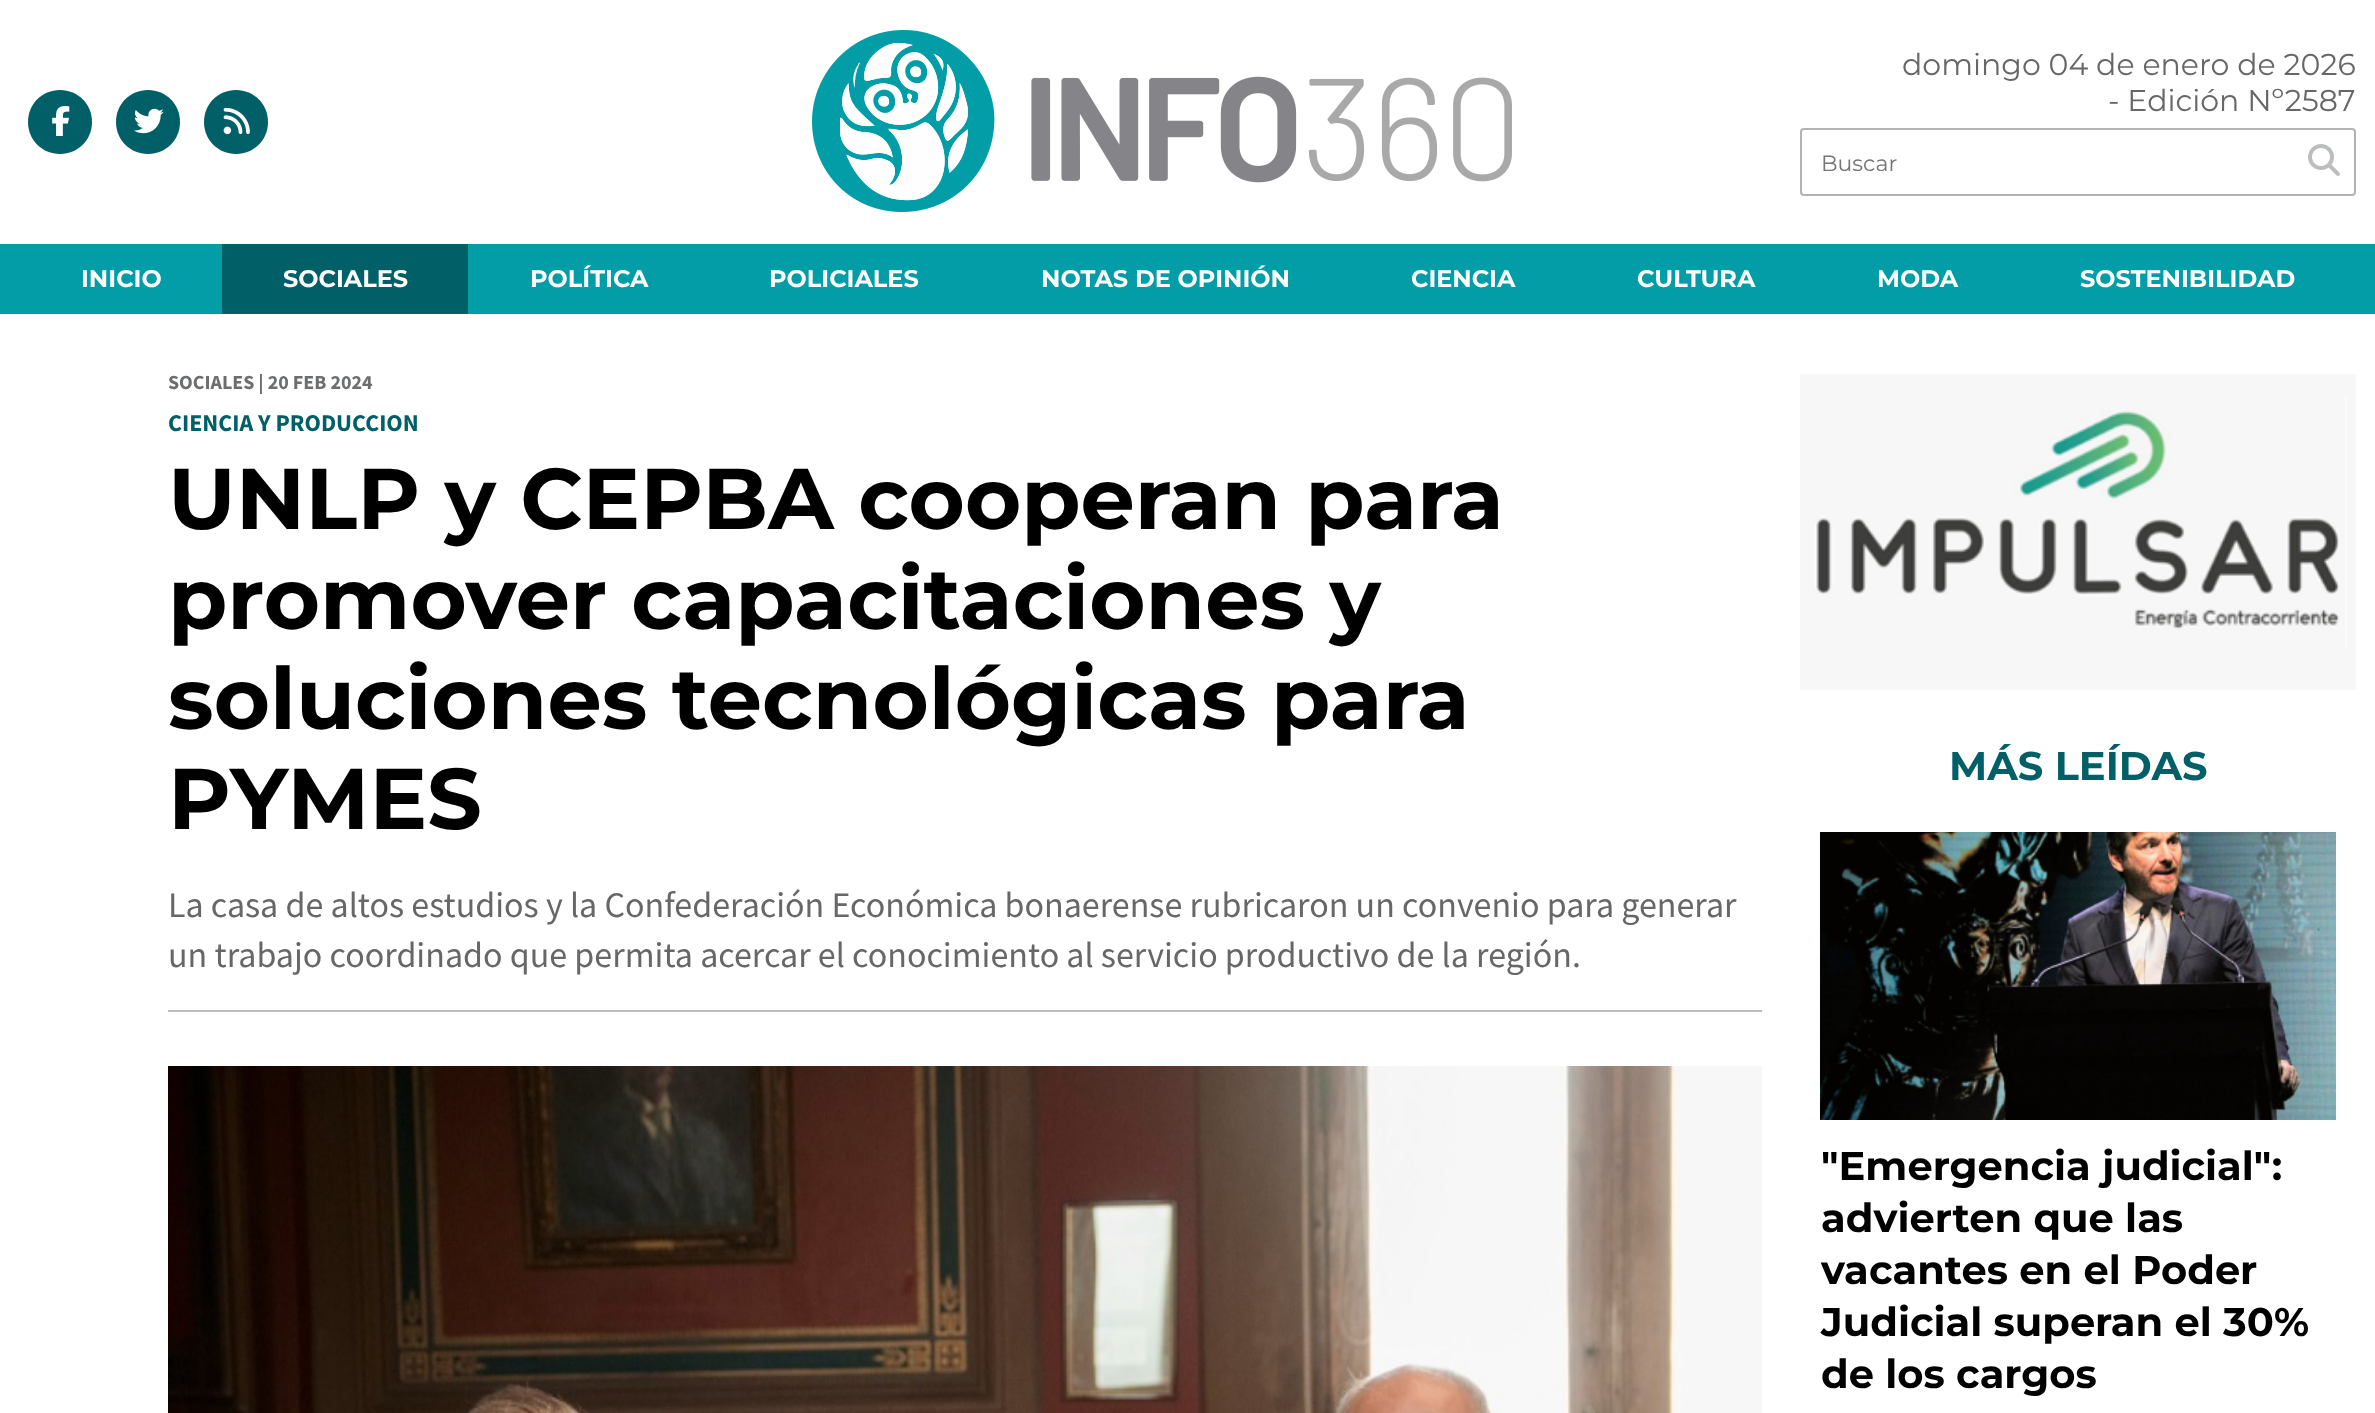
<!DOCTYPE html>
<meta charset="utf-8">
<style>body { margin: 0 } canvas { display: block }</style>
<canvas id="canvas" width="2375" height="1413"></canvas>
<script type="module">
  const canvas = document.getElementById("canvas");
  const ctx = canvas.getContext("2d");
  ctx.miterLimit = 4;
  ctx.fontKerning = "normal";
  async function loadImage(src) {
    const img = new Image();
    img.src = src;
    await img.decode();
    return img;
  }

  ctx.fillStyle = "#ffffff";
  ctx.fillRect(0, 0, 2375, 1413);
  ctx.fillStyle = "#005f67";
  ctx.beginPath();
  ctx.moveTo(60, 154);
  ctx.bezierCurveTo(78, 154, 92, 140, 92, 122);
  ctx.bezierCurveTo(92, 104, 78, 90, 60, 90);
  ctx.bezierCurveTo(42, 90, 28, 104, 28, 122);
  ctx.bezierCurveTo(28, 140, 42, 154, 60, 154);
  ctx.closePath();
  ctx.fill();
  ctx.drawImage(await loadImage("img1.png"), 52, 106, 18, 30);
  ctx.beginPath();
  ctx.moveTo(148, 154);
  ctx.bezierCurveTo(166, 154, 180, 140, 180, 122);
  ctx.bezierCurveTo(180, 104, 166, 90, 148, 90);
  ctx.bezierCurveTo(130, 90, 116, 104, 116, 122);
  ctx.bezierCurveTo(116, 140, 130, 154, 148, 154);
  ctx.closePath();
  ctx.fill();
  ctx.drawImage(await loadImage("img2.png"), 134, 108, 30, 26);
  ctx.beginPath();
  ctx.moveTo(236, 154);
  ctx.bezierCurveTo(254, 154, 268, 140, 268, 122);
  ctx.bezierCurveTo(268, 104, 254, 90, 236, 90);
  ctx.bezierCurveTo(218, 90, 204, 104, 204, 122);
  ctx.bezierCurveTo(204, 140, 218, 154, 236, 154);
  ctx.closePath();
  ctx.fill();
  ctx.drawImage(await loadImage("img3.png"), 223, 107, 27, 28);
  ctx.drawImage(await loadImage("img4.png"), 812, 30, 700, 182);
  ctx.font = "30px Montserrat";
  ctx.fillStyle = "#676767";
  ctx.fillText("domingo 04 de enero de 2026", 1902, 75);
  ctx.fillText("- Edición Nº2587", 2108, 111);
  ctx.beginPath();
  ctx.roundRect(1801, 129, 554, 66, 3);
  ctx.strokeStyle = "#b3b3b3";
  ctx.lineWidth = 2;
  ctx.stroke();
  ctx.font = "22px Montserrat";
  ctx.fillStyle = "#757575";
  ctx.fillText("Buscar", 1821, 171);
  ctx.drawImage(await loadImage("img5.png"), 2308, 144, 32, 32);
  ctx.fillStyle = "#029da7";
  ctx.fillRect(0, 244, 2375, 70);
  ctx.font = "bold 24px Montserrat";
  ctx.fillStyle = "#ffffff";
  ctx.fillText("INICIO", 81, 287);
  ctx.fillStyle = "#005f67";
  ctx.fillRect(222, 244, 246, 70);
  ctx.fillStyle = "#ffffff";
  ctx.fillText("SOCIALES", 283, 287);
  ctx.fillText("POLÍTICA", 530, 287);
  ctx.fillText("POLICIALES", 769, 287);
  ctx.fillText("NOTAS DE OPINIÓN", 1041, 287);
  ctx.fillText("CIENCIA", 1411, 287);
  ctx.fillText("CULTURA", 1637, 287);
  ctx.fillText("MODA", 1877, 287);
  ctx.fillText("SOSTENIBILIDAD", 2080, 287);
  ctx.font = "bold 20px Source Sans Pro";
  ctx.fillStyle = "#6d6e70";
  ctx.fillText("SOCIALES | 20 FEB 2024", 168, 389);
  ctx.font = "bold 24px Source Sans Pro";
  ctx.fillStyle = "#005f67";
  ctx.fillText("CIENCIA Y PRODUCCION", 168, 431);
  ctx.font = "bold 86px Montserrat";
  ctx.fillStyle = "#000000";
  ctx.fillText("UNLP y CEPBA cooperan para", 168, 529);
  ctx.fillText("promover capacitaciones y", 168, 629);
  ctx.fillText("soluciones tecnológicas para", 168, 729);
  ctx.fillText("PYMES", 168, 829);
  ctx.font = "36px Source Sans Pro";
  ctx.fillStyle = "#676767";
  ctx.fillText("La casa de altos estudios y la Confederación Económica bonaerense rubricaron un convenio para generar", 168, 917);
  ctx.fillText("un trabajo coordinado que permita acercar el conocimiento al servicio productivo de la región.", 168, 967);
  ctx.fillStyle = "#bbbdbf";
  ctx.fillRect(168, 1010, 1594, 2);
  ctx.drawImage(await loadImage("img6.png"), 168, 1066, 1594, 347);
  ctx.drawImage(await loadImage("img7.png"), 1800, 374, 556, 316);
  ctx.font = "bold 40px Montserrat";
  ctx.fillStyle = "#005f67";
  ctx.fillText("MÁS LEÍDAS", 1949, 780);
  ctx.drawImage(await loadImage("img8.png"), 1820, 832, 516, 288);
  ctx.fillStyle = "#000000";
  ctx.fillText("\"Emergencia judicial\":", 1821, 1180);
  ctx.fillText("advierten que las", 1821, 1232);
  ctx.fillText("vacantes en el Poder", 1821, 1284);
  ctx.fillText("Judicial superan el 30%", 1821, 1336);
  ctx.fillText("de los cargos", 1821, 1388);
</script>
